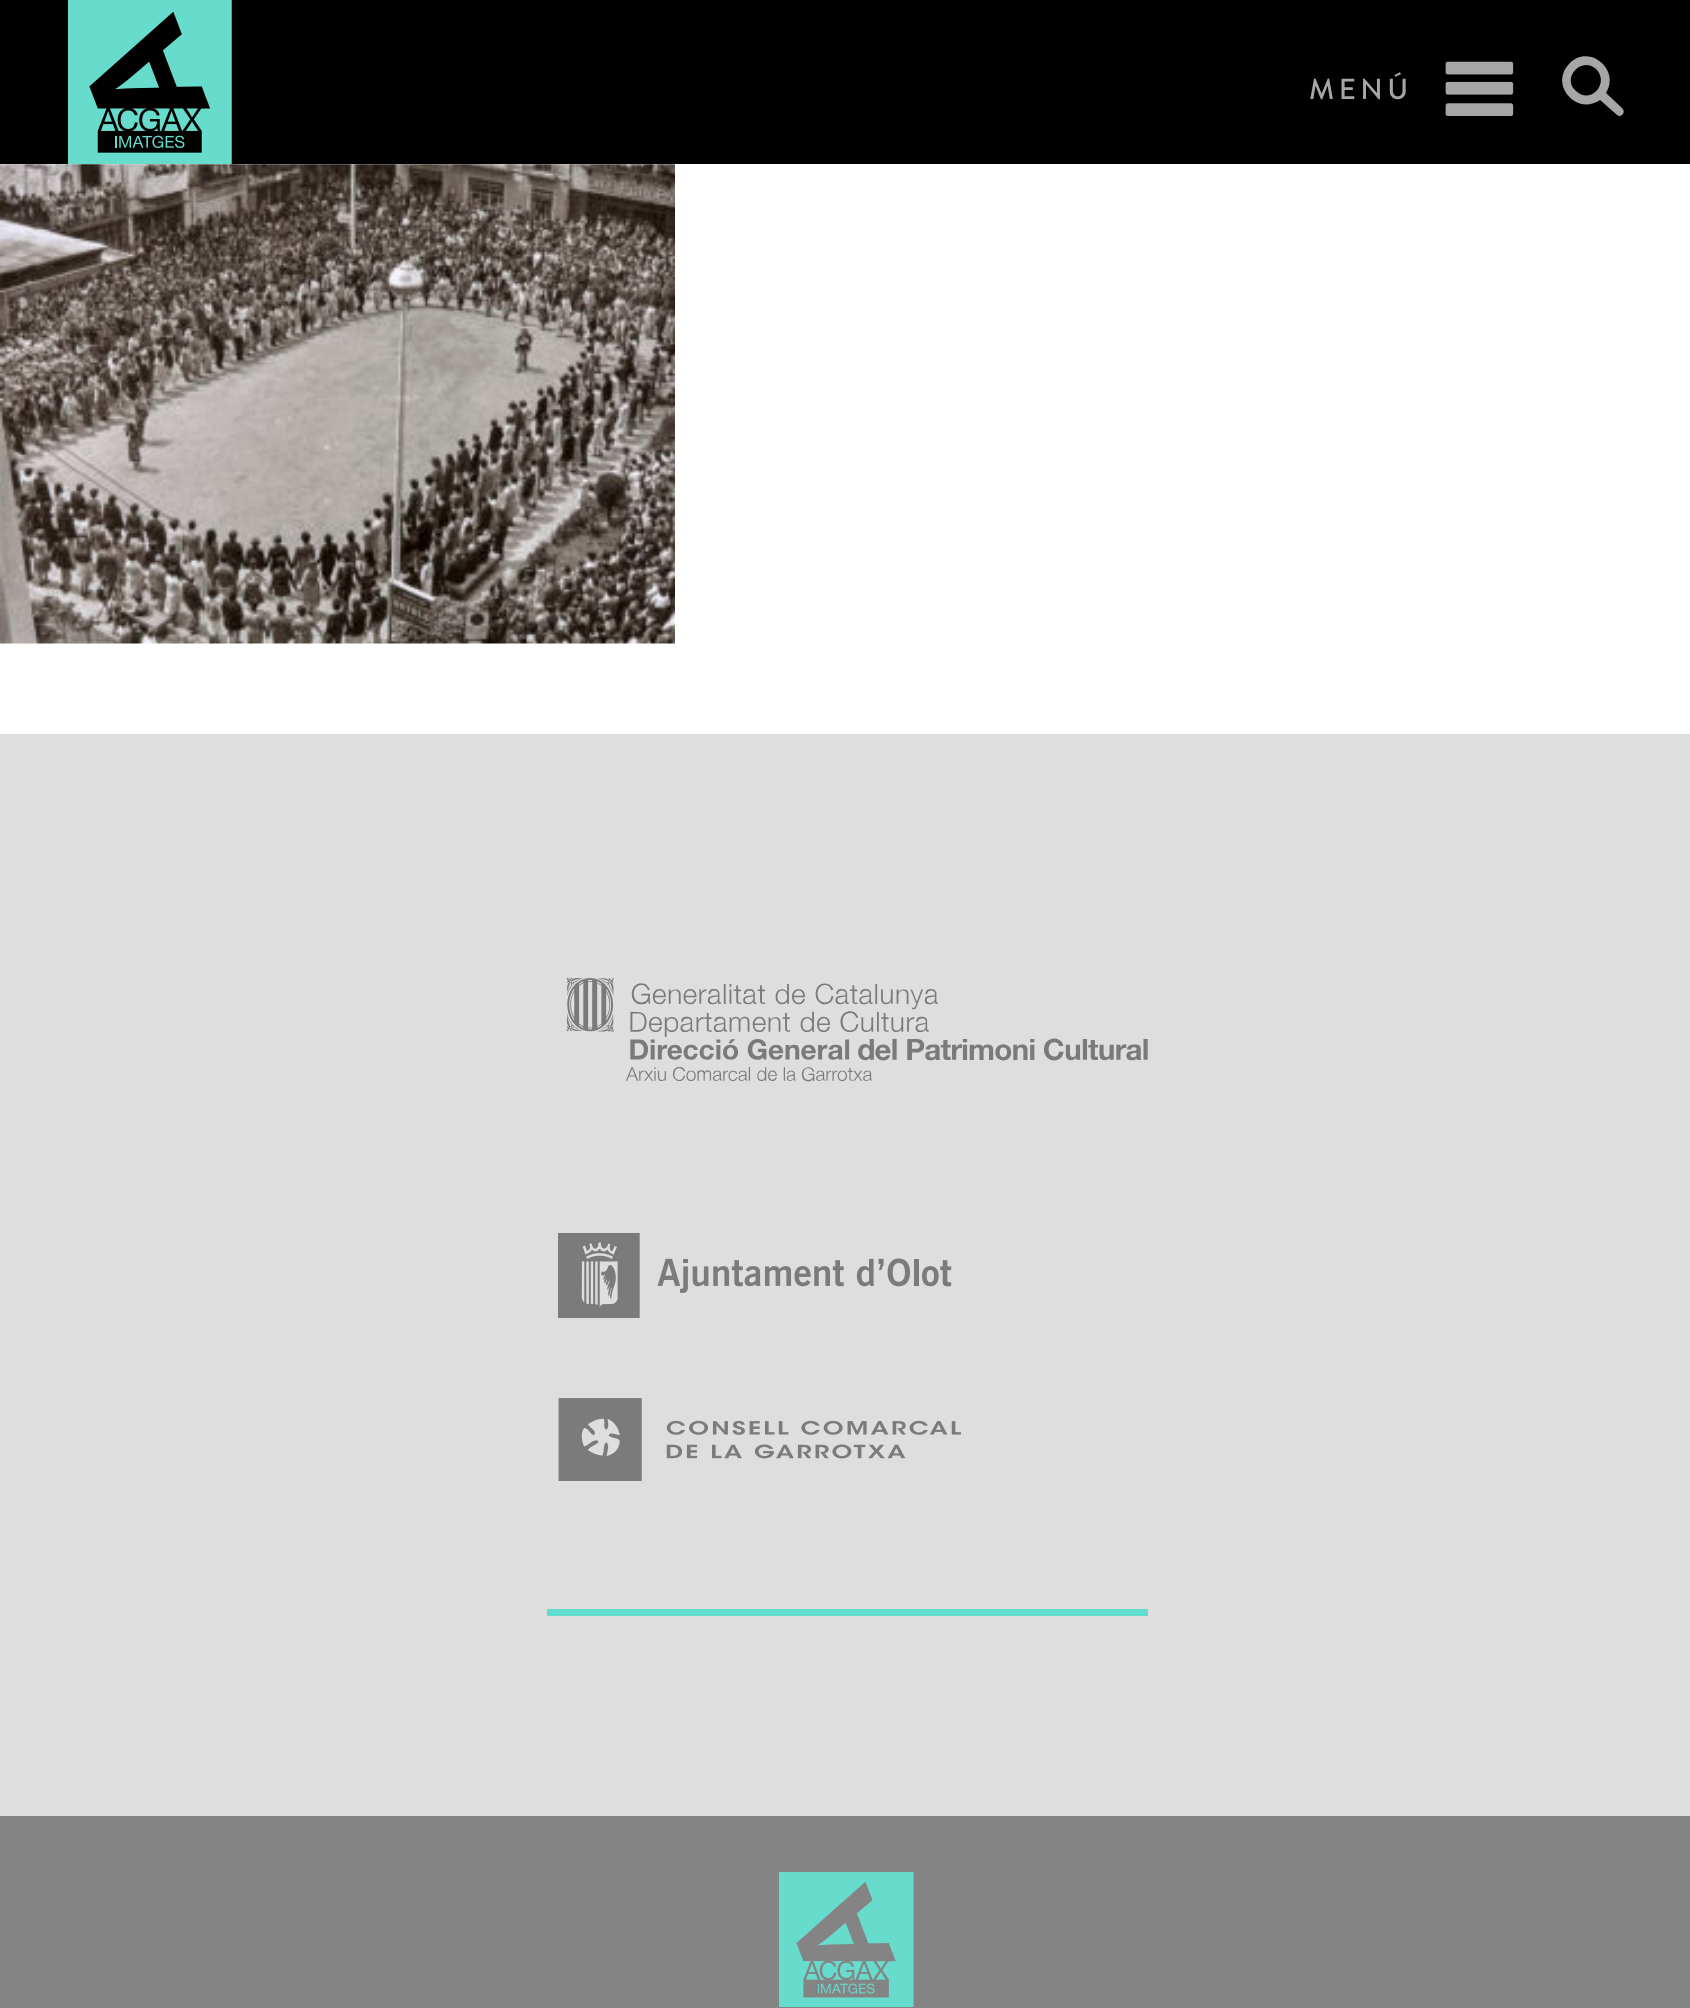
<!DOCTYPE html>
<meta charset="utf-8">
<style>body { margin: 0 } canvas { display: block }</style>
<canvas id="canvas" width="1690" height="2008"></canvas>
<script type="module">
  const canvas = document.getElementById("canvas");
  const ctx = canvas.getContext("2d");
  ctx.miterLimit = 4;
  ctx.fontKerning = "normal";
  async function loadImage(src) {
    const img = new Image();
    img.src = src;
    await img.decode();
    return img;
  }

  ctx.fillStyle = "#ffffff";
  ctx.fillRect(0, 0, 1690, 2008);
  ctx.fillStyle = "#000000";
  ctx.fillRect(0, 0, 1690, 164);
  ctx.drawImage(await loadImage("img1.png"), 68, 0, 164, 164);
  ctx.drawImage(await loadImage("img2.png"), 1445, 61, 69, 55);
  ctx.letterSpacing = "4.5px";
  ctx.font = "500 29px Brandon Grotesque";
  ctx.fillStyle = "#a6a6a6";
  ctx.fillText("MENÚ", 1309, 99);
  ctx.beginPath();
  ctx.moveTo(1569, 64);
  ctx.bezierCurveTo(1549, 85, 1577, 116, 1600, 100);
  ctx.lineTo(1616, 114);
  ctx.bezierCurveTo(1620, 119, 1627, 113, 1622, 108);
  ctx.lineTo(1606, 93);
  ctx.bezierCurveTo(1621, 69, 1588, 43, 1569, 64);
  ctx.closePath();
  ctx.moveTo(1596, 69);
  ctx.bezierCurveTo(1610, 83, 1591, 105, 1576, 91);
  ctx.bezierCurveTo(1561, 78, 1582, 56, 1596, 69);
  ctx.closePath();
  ctx.fill();
  ctx.drawImage(await loadImage("img3.png"), 0, 164, 675, 480);
  ctx.fillStyle = "#dedede";
  ctx.fillRect(0, 734, 1690, 1082);
  ctx.fillStyle = "#60ddcc";
  ctx.fillRect(547, 1609, 601, 7);
  ctx.drawImage(await loadImage("img4.png"), 566, 977, 582, 105);
  ctx.drawImage(await loadImage("img5.png"), 558, 1233, 394, 85);
  ctx.drawImage(await loadImage("img6.png"), 558, 1398, 403, 83);
  ctx.fillStyle = "#848484";
  ctx.fillRect(0, 1816, 1690, 192);
  ctx.drawImage(await loadImage("img7.png"), 779, 1872, 135, 135);
</script>
